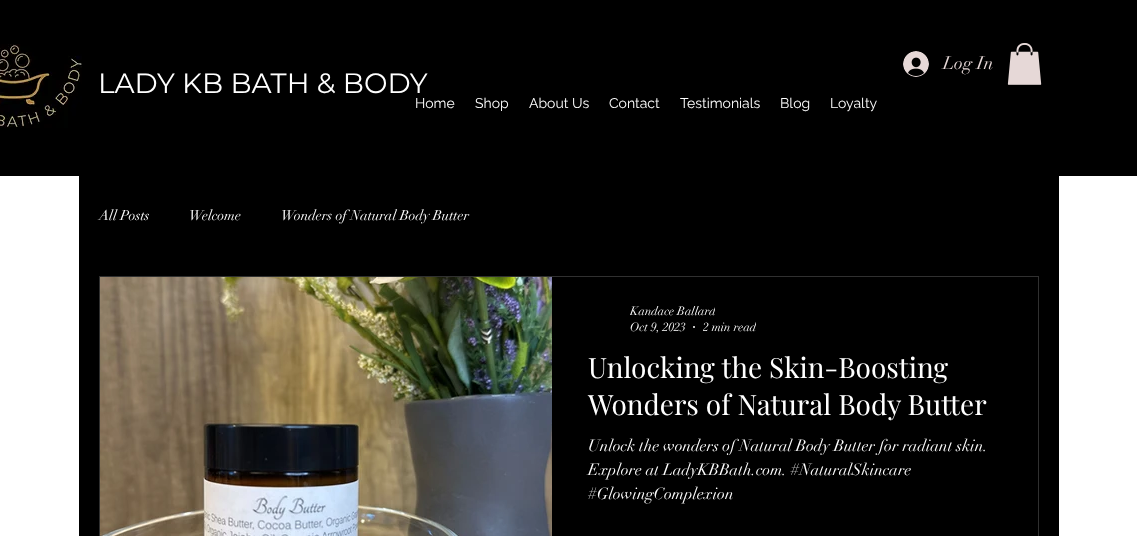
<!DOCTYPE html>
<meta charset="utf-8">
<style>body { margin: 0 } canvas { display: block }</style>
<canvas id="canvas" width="1137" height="536"></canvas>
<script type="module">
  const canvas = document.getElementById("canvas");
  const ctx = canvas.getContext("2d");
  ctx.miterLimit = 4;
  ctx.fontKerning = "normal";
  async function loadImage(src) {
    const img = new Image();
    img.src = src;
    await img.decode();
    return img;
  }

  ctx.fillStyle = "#ffffff";
  ctx.fillRect(0, 0, 1137, 536);
  ctx.fillStyle = "#000000";
  ctx.fillRect(0, 0, 1137, 176);
  ctx.drawImage(await loadImage("img1.png"), 0, 44, 82, 84);
  ctx.font = "28px Montserrat";
  ctx.fillStyle = "#ffffff";
  ctx.fillText("LADY KB BATH & BODY", 98, 93);
  ctx.drawImage(await loadImage("img2.png"), 903, 51, 26, 26);
  ctx.font = "18px didot";
  ctx.fillStyle = "#e6d8d7";
  ctx.fillText("Log In", 943, 69);
  ctx.drawImage(await loadImage("img3.png"), 1007, 43, 35, 42);
  ctx.font = "14px Raleway";
  ctx.fillStyle = "#ffffff";
  ctx.fillText("Home", 415, 108);
  ctx.fillText("Shop", 475, 108);
  ctx.fillText("About Us", 529, 108);
  ctx.fillText("Contact", 609, 108);
  ctx.fillText("Testimonials", 680, 108);
  ctx.fillText("Blog", 780, 108);
  ctx.fillText("Loyalty", 830, 108);
  ctx.fillStyle = "#000000";
  ctx.fillRect(79, 176, 980, 360);
  ctx.font = "14px didot";
  ctx.fillStyle = "#ffffff";
  ctx.fillText("All Posts", 99, 220);
  ctx.fillText("Welcome", 189, 220);
  ctx.fillText("Wonders of Natural Body Butter", 281, 220);
  ctx.strokeStyle = "#303030";
  ctx.strokeRect(99.5, 276.5, 939, 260);
  ctx.drawImage(await loadImage("img4.png"), 100, 277, 452, 259);
  ctx.save();
  ctx.beginPath();
  ctx.rect(630, 304, 85, 14);
  ctx.clip();
  ctx.font = "12px didot";
  ctx.fillText("Kandace Ballard", 630, 315);
  ctx.restore();
  ctx.font = "12px didot";
  ctx.fillText("Oct 9, 2023", 630, 331);
  ctx.beginPath();
  ctx.arc(694, 327, 1, 0, Math.PI * 2);
  ctx.fill();
  ctx.save();
  ctx.beginPath();
  ctx.rect(703, 320, 53, 14);
  ctx.clip();
  ctx.fillText("2 min read", 703, 331);
  ctx.restore();
  ctx.font = "28px Playfair Display";
  ctx.fillText("Unlocking the Skin-Boosting", 588, 378);
  ctx.fillText("Wonders of Natural Body Butter", 588, 415);
  ctx.font = "16px didot";
  ctx.fillText("Unlock the wonders of Natural Body Butter for radiant skin.", 588, 451);
  ctx.fillText("Explore at LadyKBBath.com. #NaturalSkincare", 588, 475);
  ctx.fillText("#GlowingComplexion", 588, 499);
</script>
